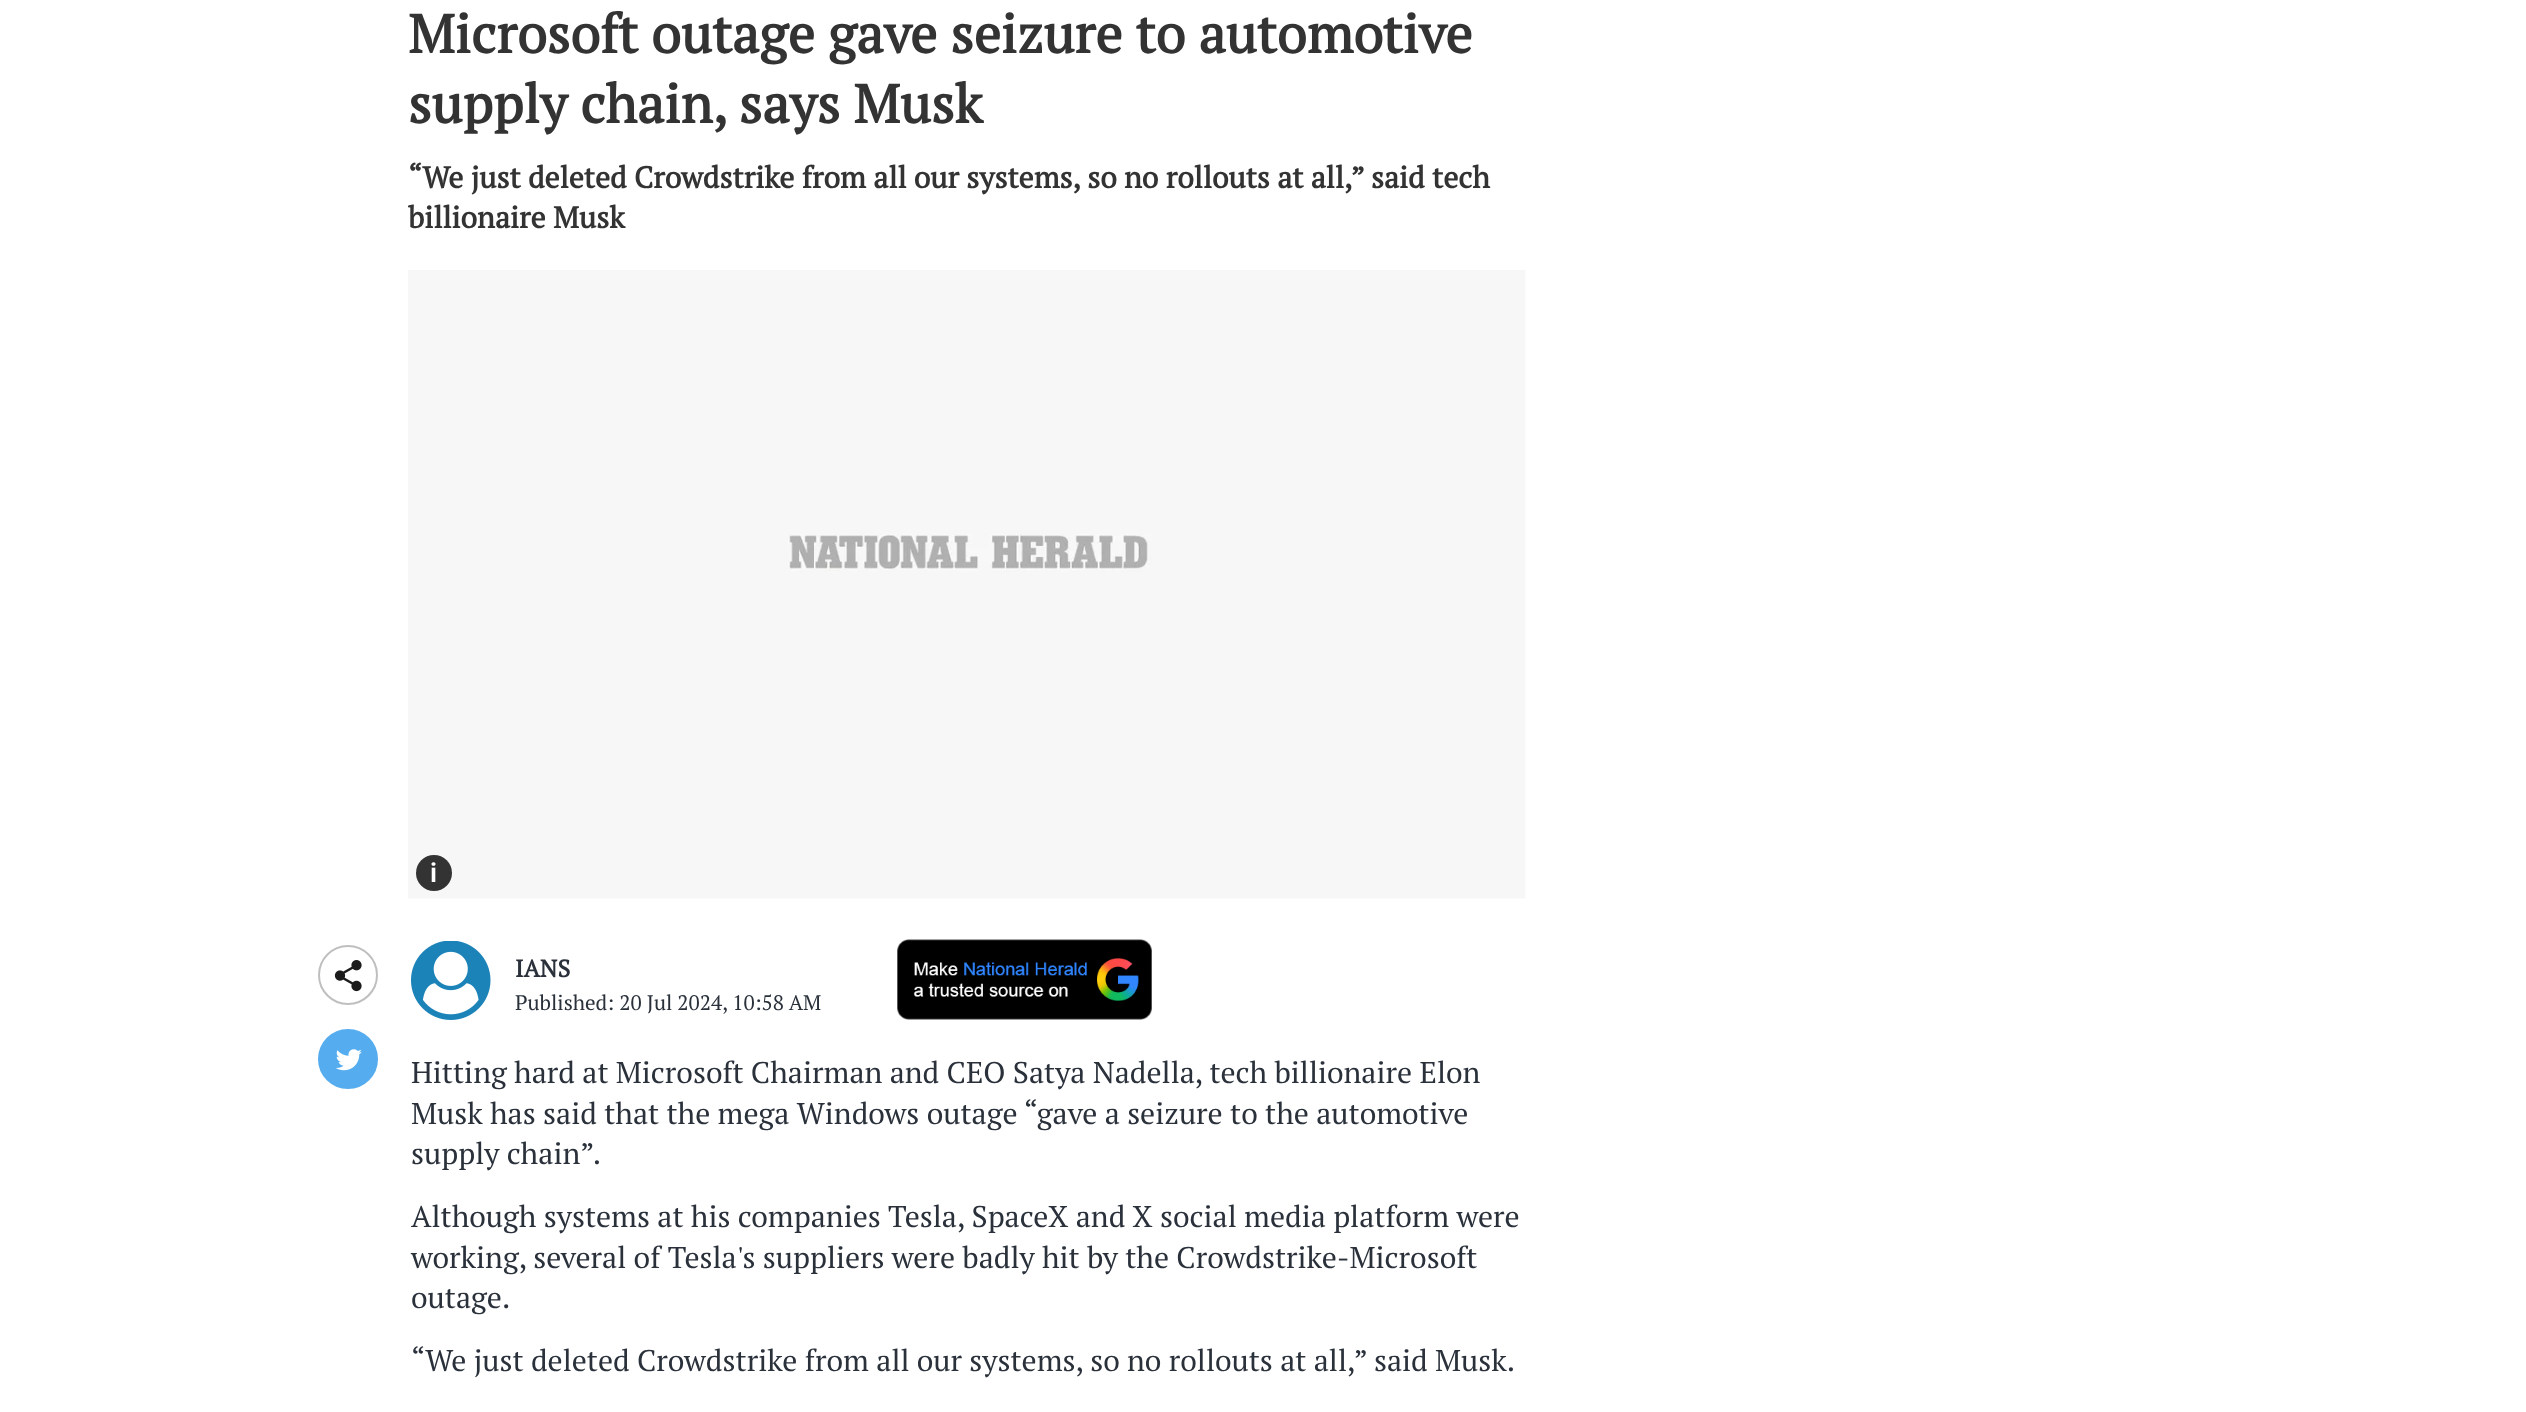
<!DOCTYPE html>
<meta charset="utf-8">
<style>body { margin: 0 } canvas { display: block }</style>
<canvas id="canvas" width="2526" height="1412"></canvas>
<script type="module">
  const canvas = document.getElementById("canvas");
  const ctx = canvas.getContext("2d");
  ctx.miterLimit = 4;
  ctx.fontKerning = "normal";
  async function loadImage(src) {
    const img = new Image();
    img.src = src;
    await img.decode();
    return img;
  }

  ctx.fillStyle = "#ffffff";
  ctx.fillRect(0, 0, 2526, 1412);
  ctx.font = "bold 54px PT Serif";
  ctx.fillStyle = "#333333";
  ctx.fillText("Microsoft outage gave seizure to automotive", 408, 53);
  ctx.fillText("supply chain, says Musk", 408, 123);
  ctx.font = "bold 30px PT Serif";
  ctx.fillText("“We just deleted Crowdstrike from all our systems, so no rollouts at all,” said tech", 408, 188);
  ctx.fillText("billionaire Musk", 408, 228);
  ctx.drawImage(await loadImage("img1.png"), 408, 270, 1118, 629);
  ctx.beginPath();
  ctx.arc(434, 873, 18, 0, Math.PI * 2);
  ctx.fill();
  ctx.font = "600 27px Roboto";
  ctx.fillStyle = "#ffffff";
  ctx.fillText("i", 430, 882);
  ctx.beginPath();
  ctx.arc(348, 975, 29, 0, Math.PI * 2);
  ctx.strokeStyle = "#bfbfbf";
  ctx.lineWidth = 2;
  ctx.stroke();
  ctx.drawImage(await loadImage("img2.png"), 334, 960, 28, 32);
  ctx.fillStyle = "#55acee";
  ctx.beginPath();
  ctx.arc(348, 1059, 29, 0, Math.PI * 2);
  ctx.fill();
  ctx.strokeStyle = "#55acee";
  ctx.stroke();
  ctx.drawImage(await loadImage("img3.png"), 335, 1049, 27, 22);
  ctx.drawImage(await loadImage("img4.png"), 411, 941, 80, 79);
  ctx.font = "bold 24px PT Serif";
  ctx.fillStyle = "#2a313b";
  ctx.fillText("IANS", 515, 977);
  ctx.font = "21px PT Serif";
  ctx.fillText("Published: 20 Jul 2024, 10:58 AM", 515, 1010);
  ctx.drawImage(await loadImage("img5.png"), 897, 939, 255, 81);
  ctx.font = "30px PT Serif";
  ctx.fillText("Hitting hard at Microsoft Chairman and CEO Satya Nadella, tech billionaire Elon", 411, 1083);
  ctx.fillText("Musk has said that the mega Windows outage “gave a seizure to the automotive", 411, 1124);
  ctx.fillText("supply chain”.", 411, 1164);
  ctx.fillText("Although systems at his companies Tesla, SpaceX and X social media platform were", 411, 1227);
  ctx.fillText("working, several of Tesla's suppliers were badly hit by the Crowdstrike-Microsoft", 411, 1268);
  ctx.fillText("outage.", 411, 1308);
  ctx.fillText("“We just deleted Crowdstrike from all our systems, so no rollouts at all,” said Musk.", 411, 1371);
</script>
